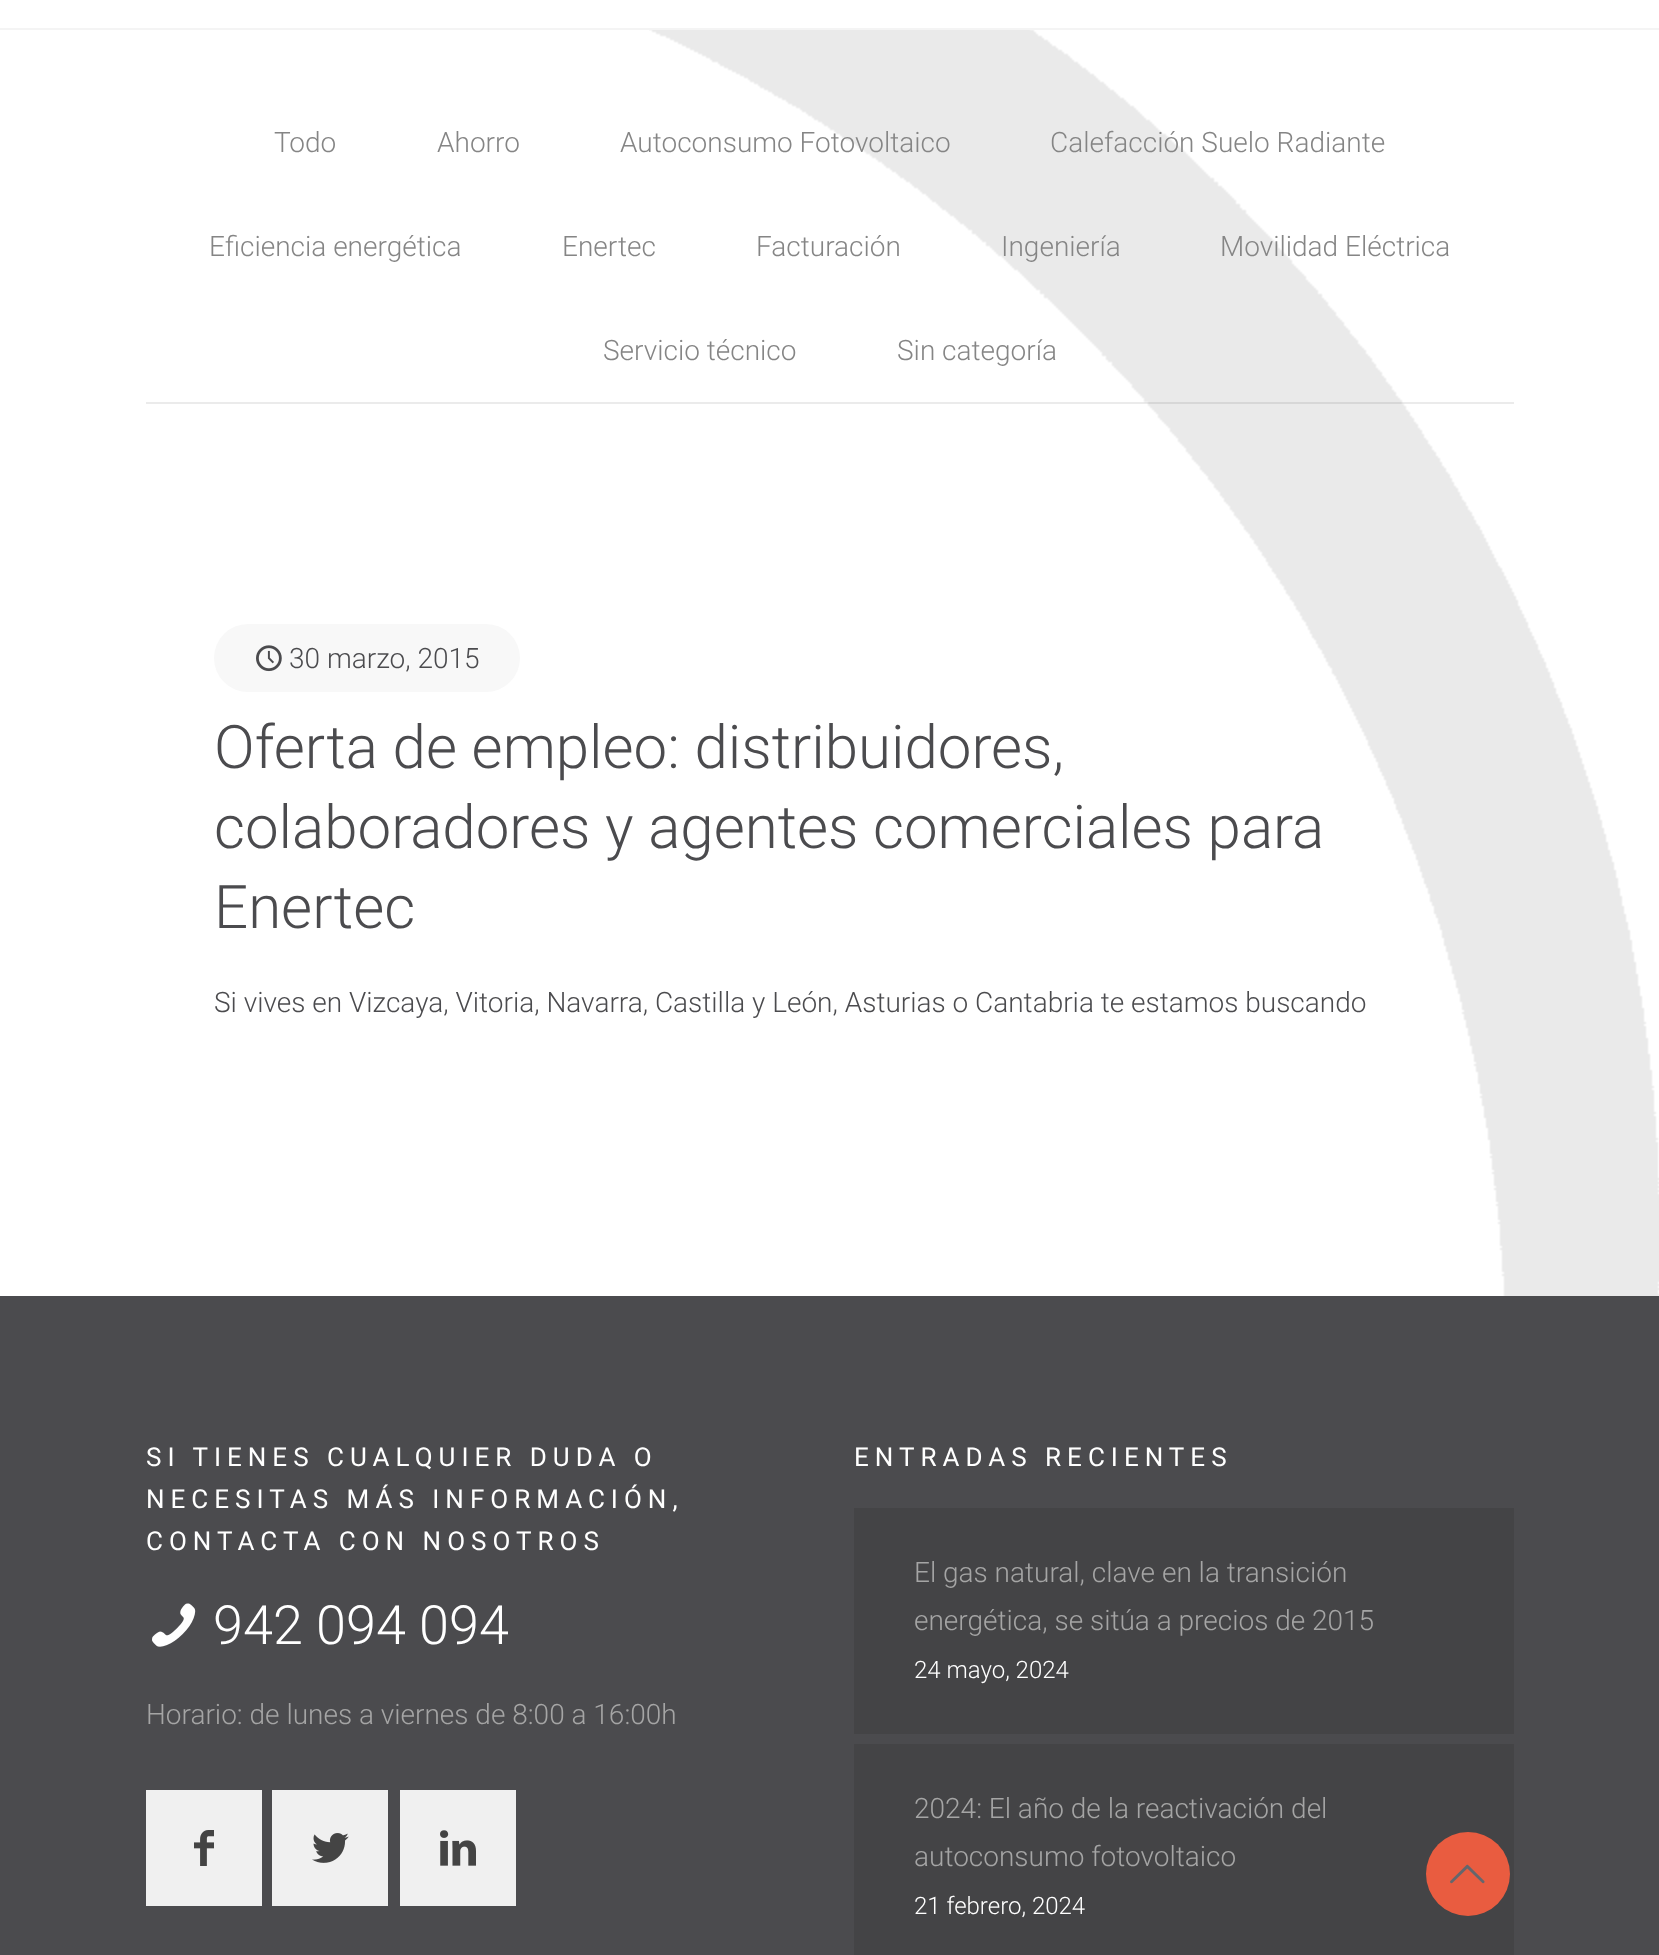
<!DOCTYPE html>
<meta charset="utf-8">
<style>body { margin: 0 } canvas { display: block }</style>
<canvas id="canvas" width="1659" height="1955"></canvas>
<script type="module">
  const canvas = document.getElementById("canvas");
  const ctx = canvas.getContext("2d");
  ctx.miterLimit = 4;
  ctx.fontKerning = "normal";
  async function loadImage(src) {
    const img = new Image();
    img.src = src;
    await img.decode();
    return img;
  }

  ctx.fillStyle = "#ffffff";
  ctx.fillRect(0, 0, 1659, 1955);
  ctx.drawImage(await loadImage("img1.png"), 649, 30, 1010, 1266);
  ctx.fillStyle = "#f4f4f4";
  ctx.fillRect(0, 28, 1659, 2);
  ctx.fillStyle = "rgba(0, 0, 0, 0.08)";
  ctx.fillRect(146, 402, 1368, 2);
  ctx.font = "300 28px Roboto";
  ctx.fillStyle = "#858585";
  ctx.fillText("Todo", 274, 152);
  ctx.fillText("Ahorro", 437, 152);
  ctx.fillText("Autoconsumo Fotovoltaico", 620, 152);
  ctx.fillText("Calefacción Suelo Radiante", 1050, 152);
  ctx.fillText("Eficiencia energética", 209, 256);
  ctx.fillText("Enertec", 562, 256);
  ctx.fillText("Facturación", 756, 256);
  ctx.fillText("Ingeniería", 1001, 256);
  ctx.fillText("Movilidad Eléctrica", 1220, 256);
  ctx.fillText("Servicio técnico", 603, 360);
  ctx.fillText("Sin categoría", 897, 360);
  ctx.fillStyle = "#f8f8f8";
  ctx.beginPath();
  ctx.roundRect(214, 624, 306, 68, 34);
  ctx.fill();
  ctx.drawImage(await loadImage("img2.png"), 256, 645, 26, 27);
  ctx.fillStyle = "#4b4b4e";
  ctx.fillText("30 marzo, 2015", 289, 668);
  ctx.font = "300 60px Roboto";
  ctx.fillText("Oferta de empleo: distribuidores,", 214, 768);
  ctx.fillText("colaboradores y agentes comerciales para", 214, 848);
  ctx.fillText("Enertec", 214, 928);
  ctx.font = "300 28px Roboto";
  ctx.fillText("Si vives en Vizcaya, Vitoria, Navarra, Castilla y León, Asturias o Cantabria te estamos buscando", 214, 1012);
  ctx.fillRect(0, 1296, 1659, 659);
  ctx.letterSpacing = "6px";
  ctx.font = "26px Roboto";
  ctx.fillStyle = "#ffffff";
  ctx.fillText("SI TIENES CUALQUIER DUDA O", 146, 1466);
  ctx.fillText("NECESITAS MÁS INFORMACIÓN,", 146, 1508);
  ctx.fillText("CONTACTA CON NOSOTROS", 146, 1550);
  ctx.drawImage(await loadImage("img3.png"), 152, 1603, 44, 44);
  ctx.letterSpacing = "0px";
  ctx.font = "300 54px Roboto";
  ctx.fillText("942 094 094", 213, 1644);
  ctx.font = "300 28px Roboto";
  ctx.fillStyle = "#a5a5a5";
  ctx.fillText("Horario: de lunes a viernes de 8:00 a 16:00h", 146, 1724);
  ctx.fillStyle = "#f0f0f0";
  ctx.fillRect(146, 1790, 116, 116);
  ctx.drawImage(await loadImage("img4.png"), 194, 1830, 20, 36);
  ctx.fillRect(272, 1790, 116, 116);
  ctx.drawImage(await loadImage("img5.png"), 312, 1833, 37, 30);
  ctx.fillRect(400, 1790, 116, 116);
  ctx.drawImage(await loadImage("img6.png"), 440, 1830, 36, 36);
  ctx.letterSpacing = "6px";
  ctx.font = "26px Roboto";
  ctx.fillStyle = "#ffffff";
  ctx.fillText("ENTRADAS RECIENTES", 854, 1466);
  ctx.fillStyle = "#444446";
  ctx.fillRect(854, 1508, 660, 226);
  ctx.letterSpacing = "0px";
  ctx.font = "300 28px Roboto";
  ctx.fillStyle = "#a5a5a5";
  ctx.fillText("El gas natural, clave en la transición", 914, 1582);
  ctx.fillText("energética, se sitúa a precios de 2015", 914, 1630);
  ctx.font = "300 24px Roboto";
  ctx.fillStyle = "#ffffff";
  ctx.fillText("24 mayo, 2024", 914, 1678);
  ctx.fillStyle = "#444446";
  ctx.fillRect(854, 1744, 660, 211);
  ctx.font = "300 28px Roboto";
  ctx.fillStyle = "#a5a5a5";
  ctx.fillText("2024: El año de la reactivación del", 914, 1818);
  ctx.fillText("autoconsumo fotovoltaico", 914, 1866);
  ctx.font = "300 24px Roboto";
  ctx.fillStyle = "#ffffff";
  ctx.fillText("21 febrero, 2024", 914, 1914);
  ctx.fillStyle = "#e95c40";
  ctx.beginPath();
  ctx.arc(1468, 1874, 42, 0, Math.PI * 2);
  ctx.fill();
  ctx.drawImage(await loadImage("img7.png"), 1450, 1864, 35, 20);
</script>
